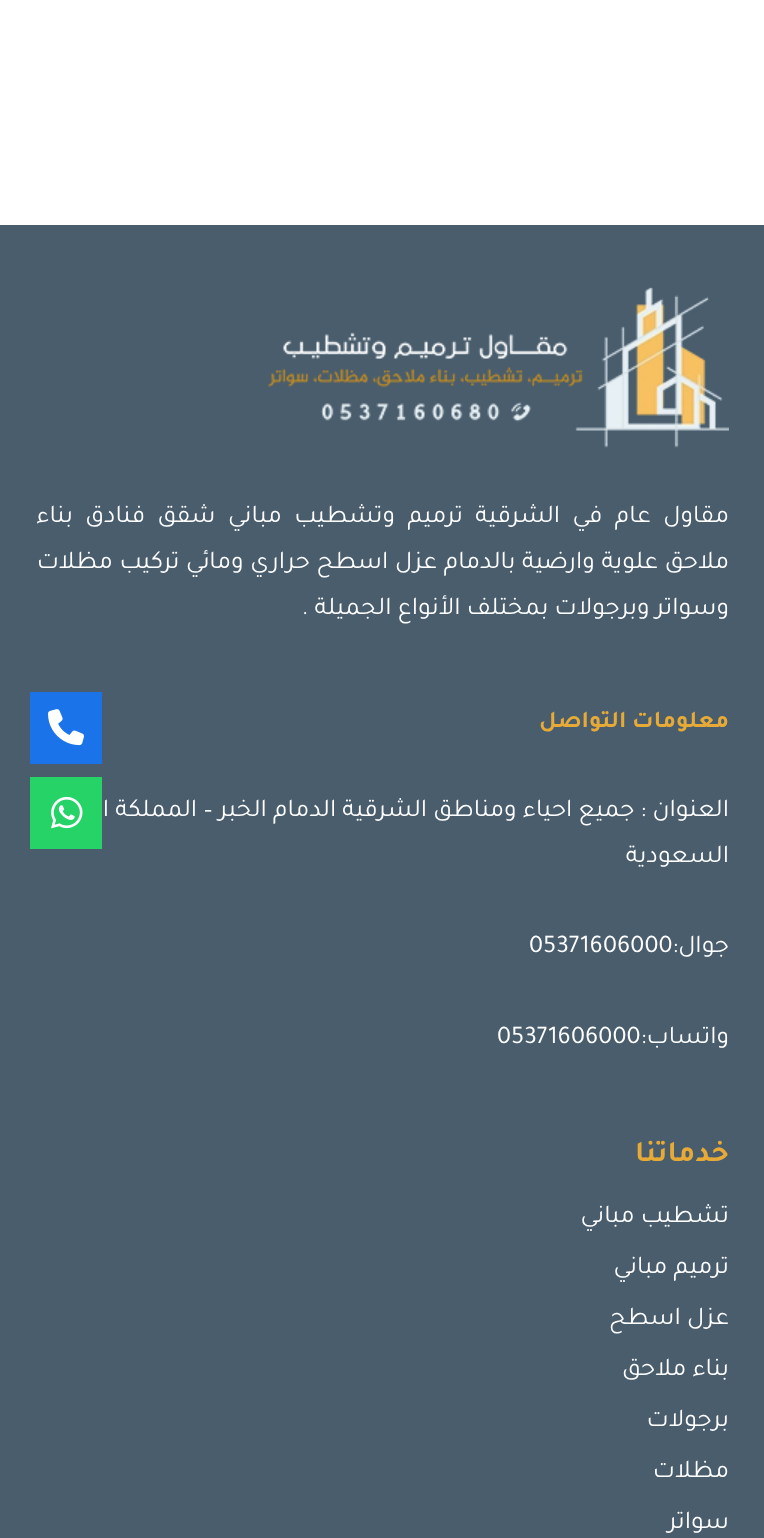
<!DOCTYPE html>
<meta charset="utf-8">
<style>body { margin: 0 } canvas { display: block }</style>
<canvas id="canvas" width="764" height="1538"></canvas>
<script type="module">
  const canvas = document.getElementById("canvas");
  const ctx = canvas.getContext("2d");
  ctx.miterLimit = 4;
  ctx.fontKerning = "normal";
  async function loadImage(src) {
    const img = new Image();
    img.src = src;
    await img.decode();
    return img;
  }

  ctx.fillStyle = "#ffffff";
  ctx.fillRect(0, 0, 764, 1538);
  ctx.fillStyle = "#495d6d";
  ctx.fillRect(0, 225, 764, 1313);
  ctx.drawImage(await loadImage("img1.png"), 268, 287, 461, 161);
  ctx.wordSpacing = "6.25px";
  ctx.direction = "rtl";
  ctx.font = "25.5px Tajawal";
  ctx.fillStyle = "#ffffff";
  ctx.fillText("مقاول عام في الشرقية ترميم وتشطيب مباني شقق فنادق بناء", 729, 522);
  ctx.wordSpacing = "0.5px";
  ctx.fillText("ملاحق علوية وارضية بالدمام عزل اسطح حراري ومائي تركيب مظلات", 729, 568);
  ctx.wordSpacing = "0px";
  ctx.fillText("وسواتر وبرجولات بمختلف الأنواع الجميلة .", 729, 614);
  ctx.font = "bold 24px Tajawal";
  ctx.fillStyle = "#e7aa36";
  ctx.fillText("معلومات التواصل", 729, 727);
  ctx.font = "25.5px Tajawal";
  ctx.fillStyle = "#ffffff";
  ctx.fillText("العنوان : جميع احياء ومناطق الشرقية الدمام الخبر – المملكة العربية", 729, 816);
  ctx.fillText("السعودية", 729, 862);
  ctx.fillText("جوال:", 729, 952);
  ctx.direction = "ltr";
  ctx.fillText("05371606000", 529, 952);
  ctx.direction = "rtl";
  ctx.fillText("واتساب:", 729, 1043);
  ctx.direction = "ltr";
  ctx.fillText("05371606000", 497, 1043);
  ctx.direction = "rtl";
  ctx.font = "bold 30px Tajawal";
  ctx.fillStyle = "#e7aa36";
  ctx.fillText("خدماتنا", 729, 1161);
  ctx.font = "25.5px Tajawal";
  ctx.fillStyle = "#ffffff";
  ctx.fillText("تشطيب مباني", 729, 1222);
  ctx.fillText("ترميم مباني", 729, 1273);
  ctx.fillText("عزل اسطح", 729, 1324);
  ctx.fillText("بناء ملاحق", 729, 1375);
  ctx.fillText("برجولات", 729, 1426);
  ctx.fillText("مظلات", 729, 1477);
  ctx.fillText("سواتر", 729, 1528);
  ctx.fillStyle = "#1a73e8";
  ctx.fillRect(30, 692, 72, 72);
  ctx.drawImage(await loadImage("img2.png"), 48, 709, 36, 37);
  ctx.fillStyle = "#25d366";
  ctx.fillRect(30, 777, 72, 72);
  ctx.drawImage(await loadImage("img3.png"), 51, 796, 32, 33);
</script>
